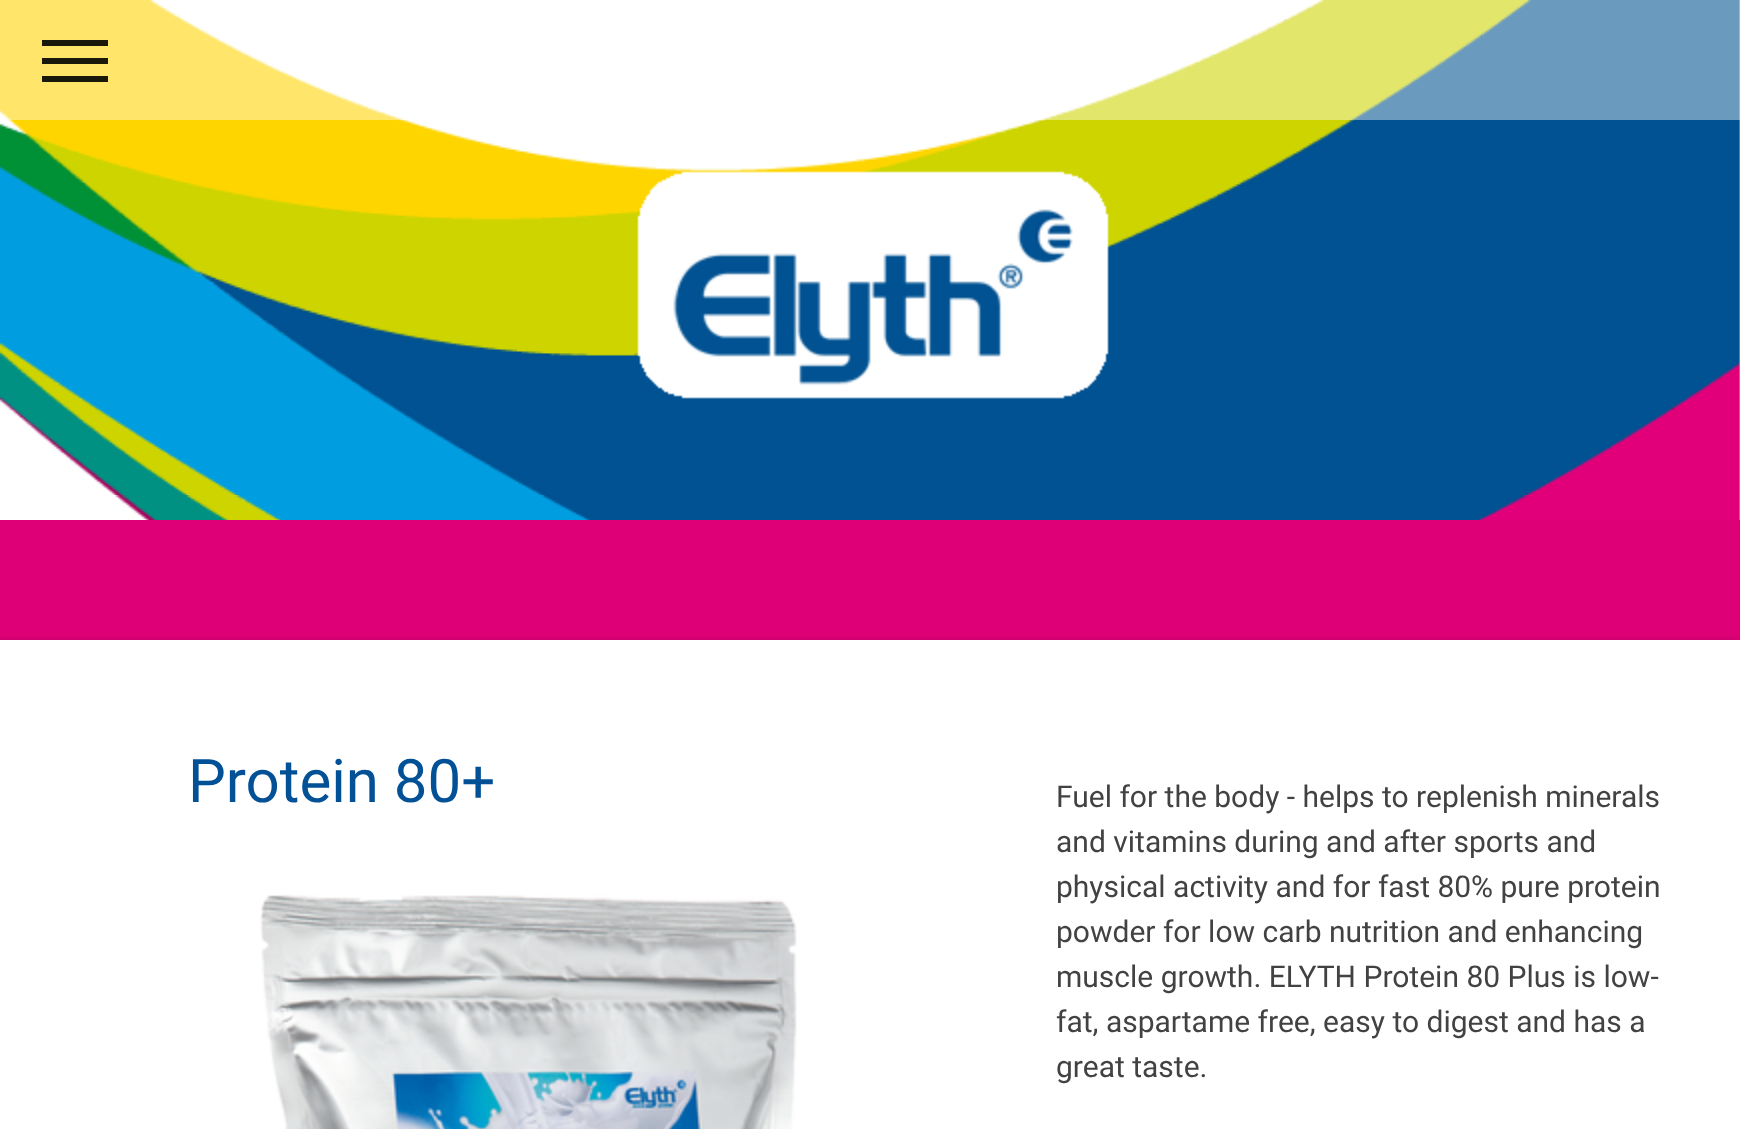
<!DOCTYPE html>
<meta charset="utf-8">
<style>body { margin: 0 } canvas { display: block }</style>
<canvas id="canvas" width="1740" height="1129"></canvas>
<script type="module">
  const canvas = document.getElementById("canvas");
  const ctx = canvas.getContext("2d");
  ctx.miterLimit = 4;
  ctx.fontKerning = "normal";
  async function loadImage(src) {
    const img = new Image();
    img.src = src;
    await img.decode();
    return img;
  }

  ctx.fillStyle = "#ffffff";
  ctx.fillRect(0, 0, 1740, 1129);
  ctx.drawImage(await loadImage("img1.png"), 0, 0, 1740, 520);
  ctx.fillStyle = "#de0076";
  ctx.fillRect(0, 520, 1740, 120);
  ctx.fillStyle = "rgba(255, 255, 255, 0.42)";
  ctx.fillRect(0, 0, 1740, 120);
  ctx.fillStyle = "#1a170b";
  ctx.fillRect(42, 58, 66, 6);
  ctx.fillRect(42, 40, 66, 6);
  ctx.fillRect(42, 76, 66, 6);
  ctx.drawImage(await loadImage("img2.png"), 637, 171, 472, 228);
  ctx.fillStyle = "rgba(0, 0, 0, 0.44)";
  ctx.filter = "blur(5px)";
  ctx.beginPath();
  ctx.rect(-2, 644, 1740, 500);
  ctx.fill();
  ctx.filter = "none";
  ctx.fillStyle = "#ffffff";
  ctx.fillRect(0, 640, 1740, 489);
  ctx.font = "60px Roboto";
  ctx.fillStyle = "#025197";
  ctx.fillText("Protein 80+", 188, 802);
  ctx.drawImage(await loadImage("img3.png"), 260, 894, 537, 235);
  ctx.font = "30px Roboto";
  ctx.fillStyle = "#424242";
  ctx.fillText("Fuel for the body - helps to replenish minerals", 1056, 807);
  ctx.fillText("and vitamins during and after sports and", 1056, 852);
  ctx.fillText("physical activity and for fast 80% pure protein", 1056, 897);
  ctx.fillText("powder for low carb nutrition and enhancing", 1056, 942);
  ctx.fillText("muscle growth. ELYTH Protein 80 Plus is low-", 1056, 987);
  ctx.fillText("fat, aspartame free, easy to digest and has a", 1056, 1032);
  ctx.fillText("great taste.", 1056, 1077);
</script>
